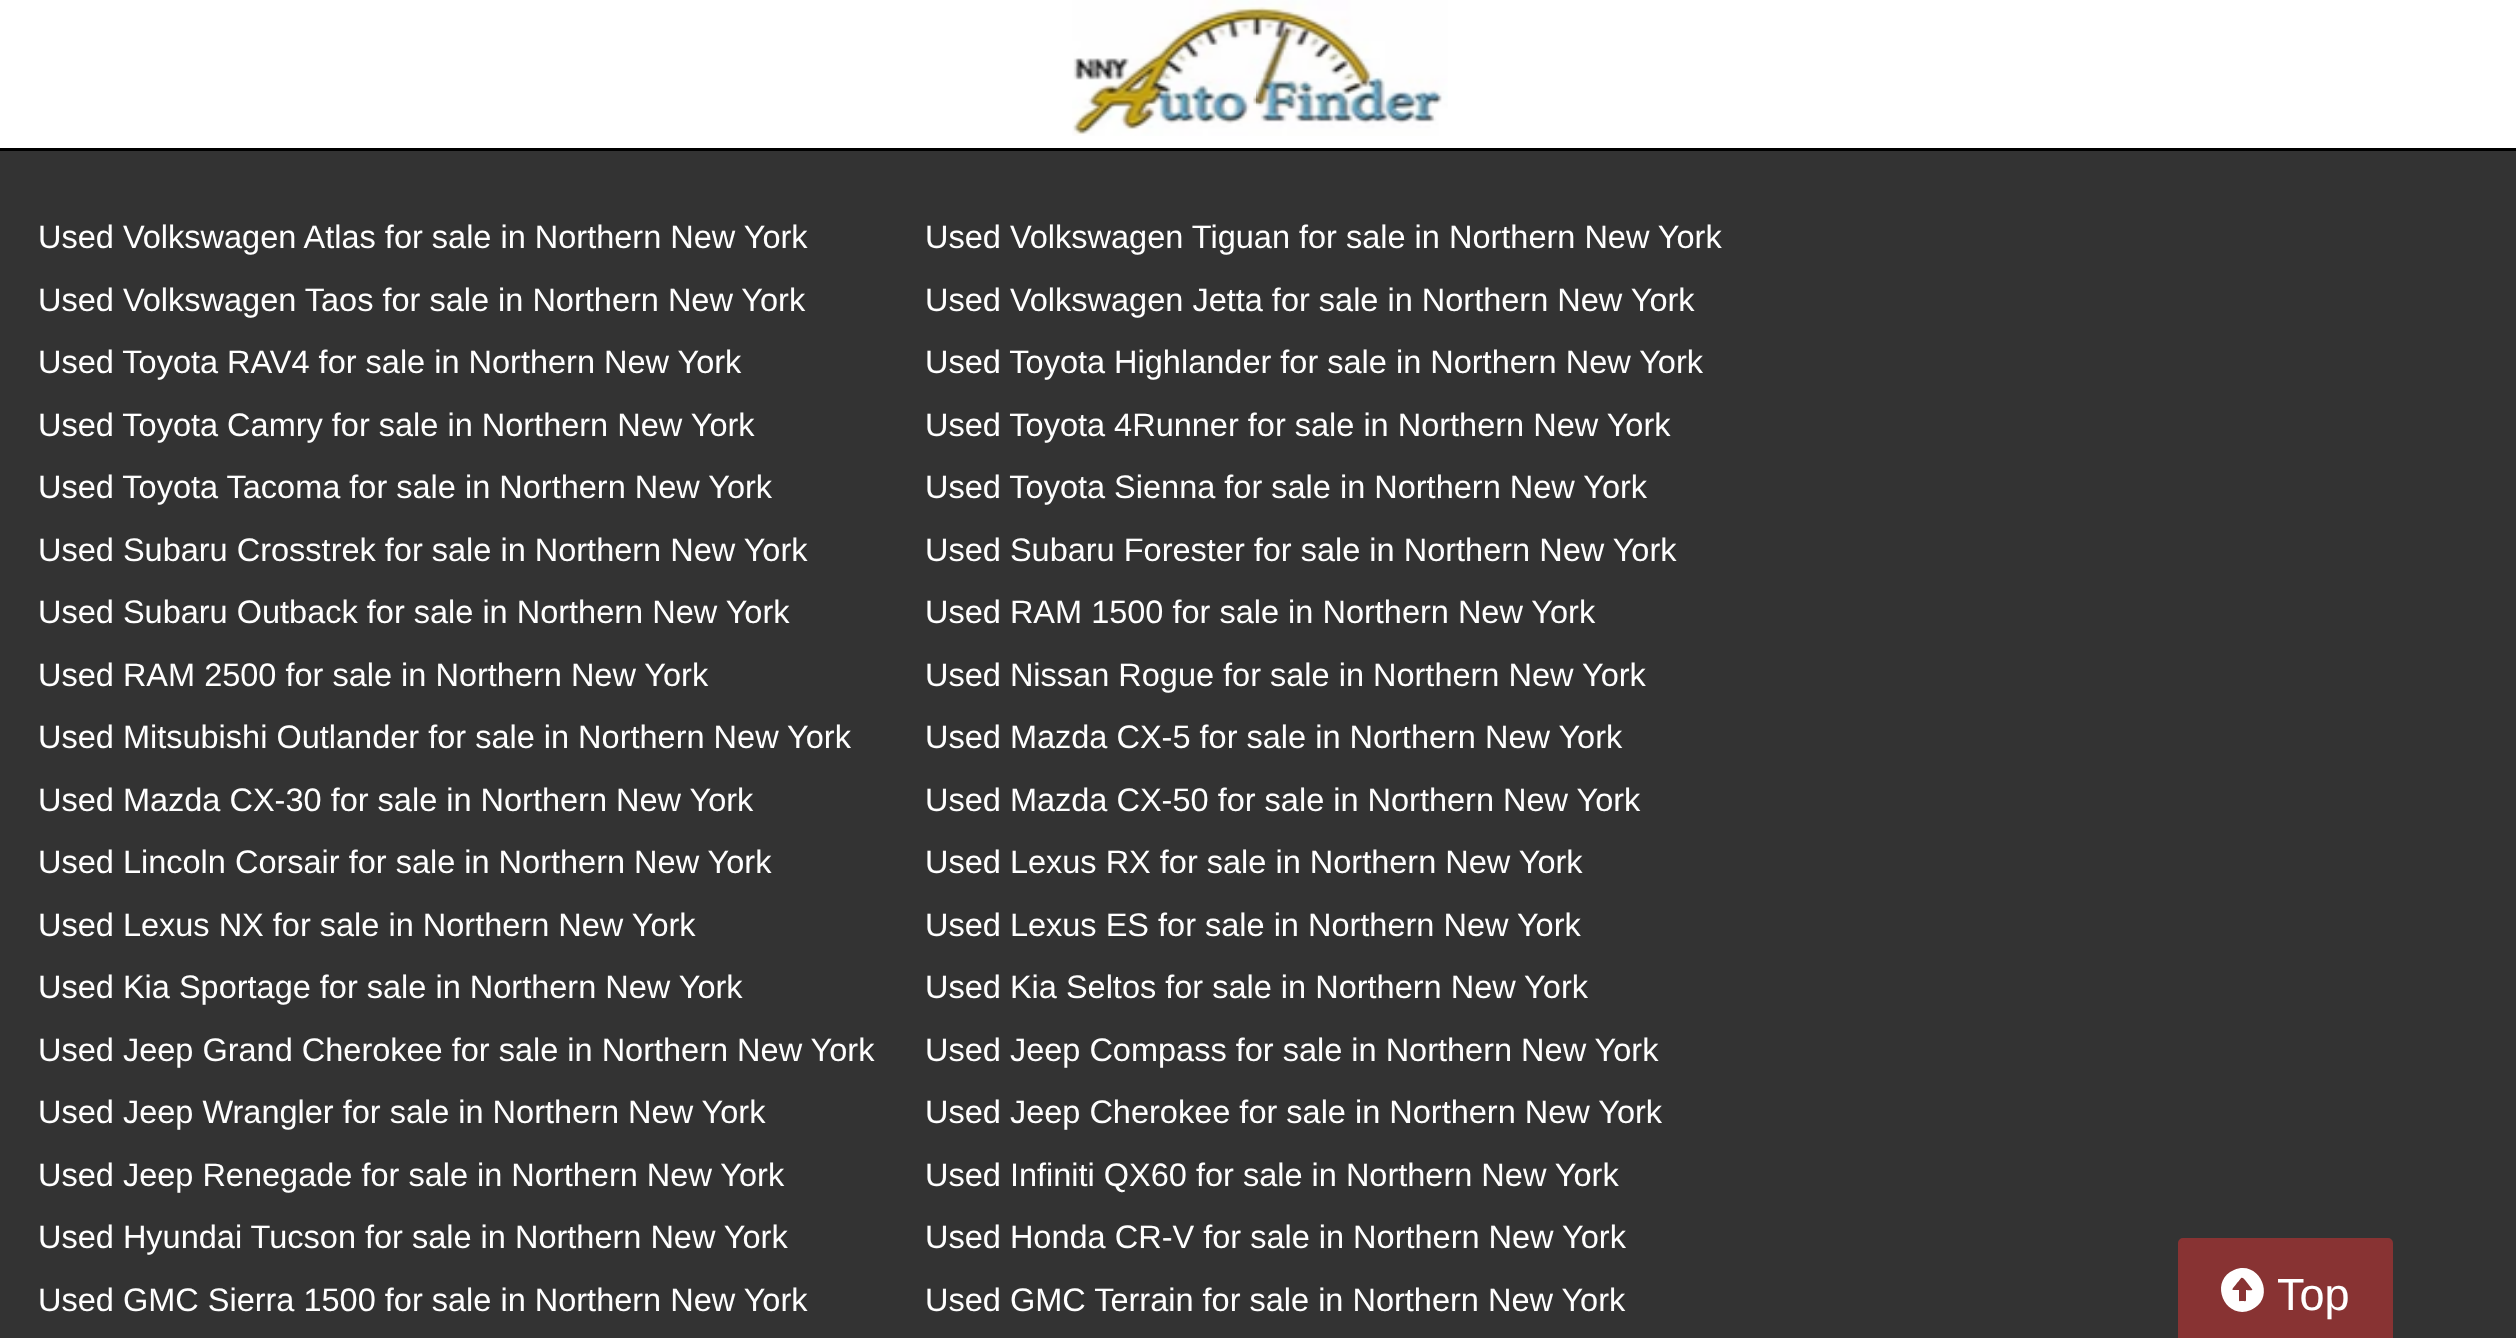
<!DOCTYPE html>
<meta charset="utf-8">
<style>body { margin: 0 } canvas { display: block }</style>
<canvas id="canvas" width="2516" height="1338"></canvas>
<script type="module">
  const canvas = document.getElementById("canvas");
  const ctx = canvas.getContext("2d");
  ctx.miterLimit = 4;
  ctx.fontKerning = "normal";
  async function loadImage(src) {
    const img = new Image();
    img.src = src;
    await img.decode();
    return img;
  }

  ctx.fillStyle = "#333333";
  ctx.fillRect(0, 0, 2516, 1338);
  ctx.fillStyle = "#ffffff";
  ctx.fillRect(0, 0, 2516, 148);
  ctx.drawImage(await loadImage("img1.png"), 1072, 0, 376, 136);
  ctx.fillStyle = "#000000";
  ctx.fillRect(0, 148, 2516, 3);
  ctx.font = "32.5px Liberation Sans";
  ctx.fillStyle = "#ffffff";
  ctx.fillText("Used Volkswagen Atlas for sale in Northern New York", 38, 248);
  ctx.fillText("Used Volkswagen Tiguan for sale in Northern New York", 925, 248);
  ctx.fillText("Used Volkswagen Taos for sale in Northern New York", 38, 311);
  ctx.fillText("Used Volkswagen Jetta for sale in Northern New York", 925, 311);
  ctx.fillText("Used Toyota RAV4 for sale in Northern New York", 38, 373);
  ctx.fillText("Used Toyota Highlander for sale in Northern New York", 925, 373);
  ctx.fillText("Used Toyota Camry for sale in Northern New York", 38, 436);
  ctx.fillText("Used Toyota 4Runner for sale in Northern New York", 925, 436);
  ctx.fillText("Used Toyota Tacoma for sale in Northern New York", 38, 498);
  ctx.fillText("Used Toyota Sienna for sale in Northern New York", 925, 498);
  ctx.fillText("Used Subaru Crosstrek for sale in Northern New York", 38, 561);
  ctx.fillText("Used Subaru Forester for sale in Northern New York", 925, 561);
  ctx.fillText("Used Subaru Outback for sale in Northern New York", 38, 623);
  ctx.fillText("Used RAM 1500 for sale in Northern New York", 925, 623);
  ctx.fillText("Used RAM 2500 for sale in Northern New York", 38, 686);
  ctx.fillText("Used Nissan Rogue for sale in Northern New York", 925, 686);
  ctx.fillText("Used Mitsubishi Outlander for sale in Northern New York", 38, 748);
  ctx.fillText("Used Mazda CX-5 for sale in Northern New York", 925, 748);
  ctx.fillText("Used Mazda CX-30 for sale in Northern New York", 38, 811);
  ctx.fillText("Used Mazda CX-50 for sale in Northern New York", 925, 811);
  ctx.fillText("Used Lincoln Corsair for sale in Northern New York", 38, 873);
  ctx.fillText("Used Lexus RX for sale in Northern New York", 925, 873);
  ctx.fillText("Used Lexus NX for sale in Northern New York", 38, 936);
  ctx.fillText("Used Lexus ES for sale in Northern New York", 925, 936);
  ctx.fillText("Used Kia Sportage for sale in Northern New York", 38, 998);
  ctx.fillText("Used Kia Seltos for sale in Northern New York", 925, 998);
  ctx.fillText("Used Jeep Grand Cherokee for sale in Northern New York", 38, 1061);
  ctx.fillText("Used Jeep Compass for sale in Northern New York", 925, 1061);
  ctx.fillText("Used Jeep Wrangler for sale in Northern New York", 38, 1123);
  ctx.fillText("Used Jeep Cherokee for sale in Northern New York", 925, 1123);
  ctx.fillText("Used Jeep Renegade for sale in Northern New York", 38, 1186);
  ctx.fillText("Used Infiniti QX60 for sale in Northern New York", 925, 1186);
  ctx.fillText("Used Hyundai Tucson for sale in Northern New York", 38, 1248);
  ctx.fillText("Used Honda CR-V for sale in Northern New York", 925, 1248);
  ctx.fillText("Used GMC Sierra 1500 for sale in Northern New York", 38, 1311);
  ctx.fillText("Used GMC Terrain for sale in Northern New York", 925, 1311);
  ctx.fillStyle = "#883333";
  ctx.beginPath();
  ctx.roundRect(2179.5, 1239.5, 212, 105, 3.5);
  ctx.fill();
  ctx.strokeStyle = "#883333";
  ctx.lineWidth = 3;
  ctx.stroke();
  ctx.fillStyle = "#ffffff";
  ctx.beginPath();
  ctx.moveTo(2234, 1270);
  ctx.bezierCurveTo(2260, 1259, 2277, 1299, 2251, 1310);
  ctx.bezierCurveTo(2225, 1321, 2208, 1281, 2234, 1270);
  ctx.closePath();
  ctx.moveTo(2252, 1289);
  ctx.lineTo(2245, 1280);
  ctx.bezierCurveTo(2241, 1275, 2241, 1279, 2237, 1283);
  ctx.bezierCurveTo(2231, 1291, 2230, 1290, 2239, 1290);
  ctx.lineTo(2239, 1299);
  ctx.bezierCurveTo(2239, 1302, 2239, 1301, 2242, 1301);
  ctx.bezierCurveTo(2246, 1301, 2246, 1302, 2246, 1299);
  ctx.lineTo(2246, 1290);
  ctx.bezierCurveTo(2247, 1290, 2254, 1291, 2252, 1289);
  ctx.closePath();
  ctx.fill();
  ctx.font = "45px Liberation Sans";
  ctx.fillText("Top", 2277, 1310);
</script>
